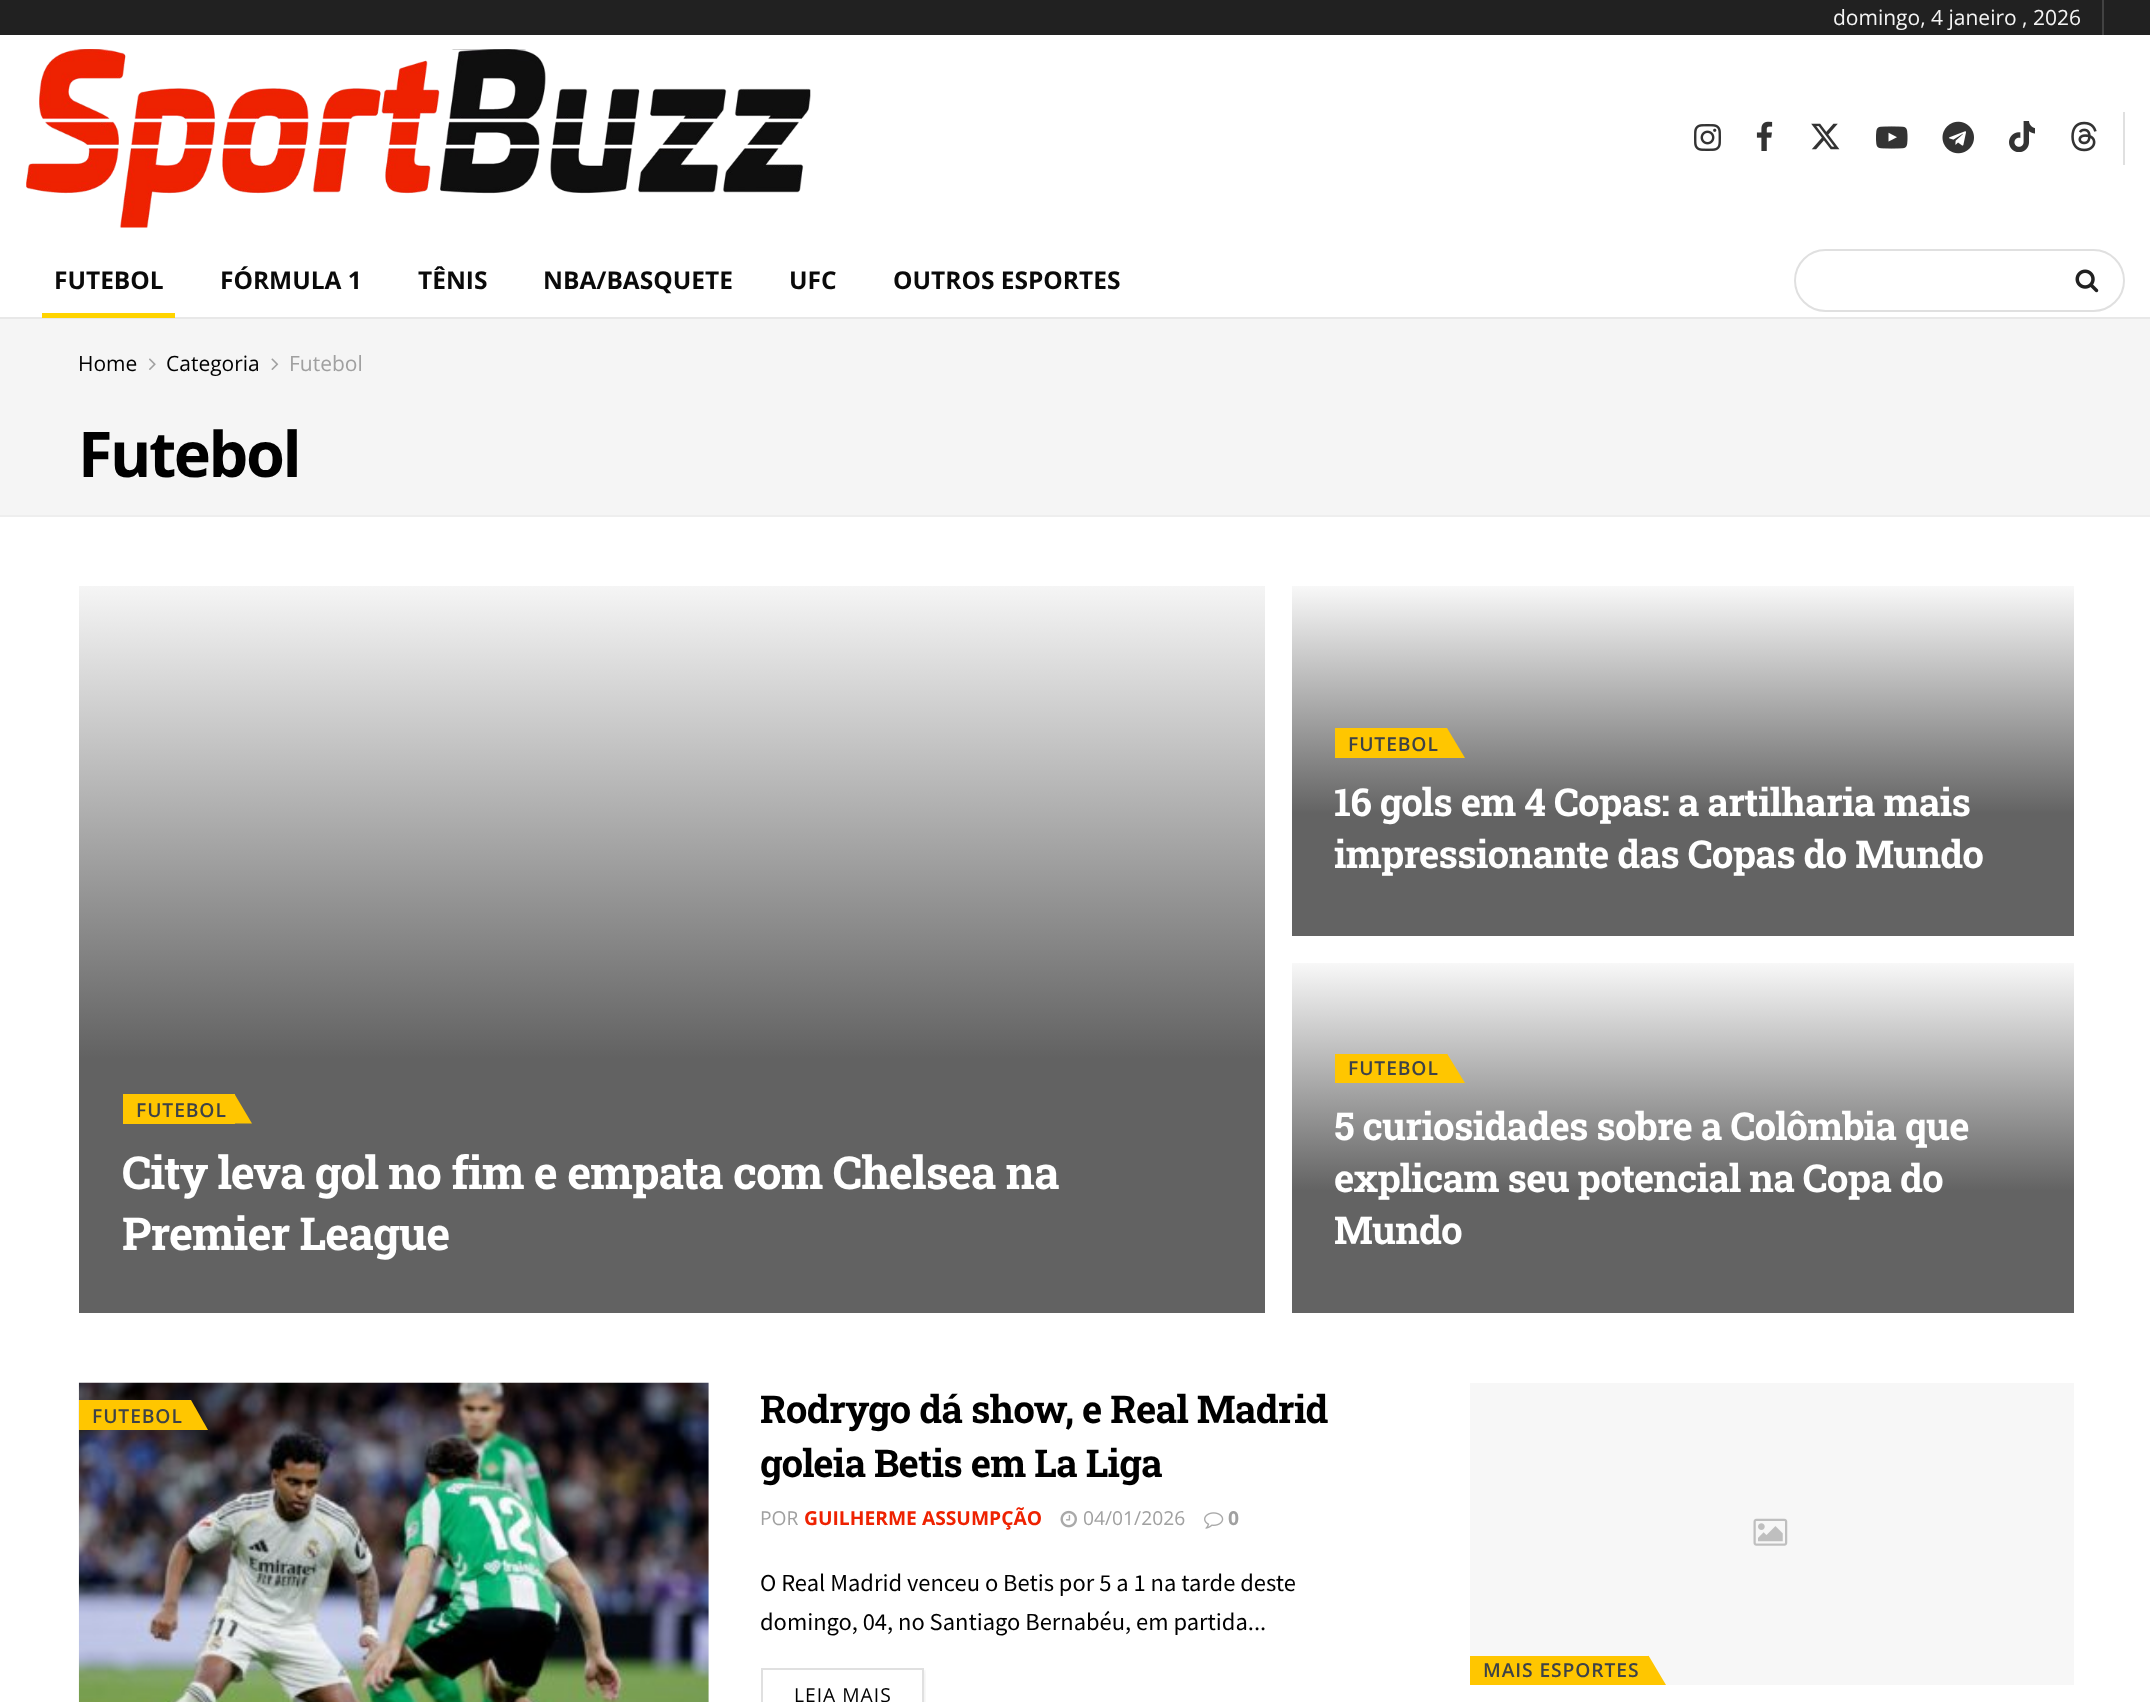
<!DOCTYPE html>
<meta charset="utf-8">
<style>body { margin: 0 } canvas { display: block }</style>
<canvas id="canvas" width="2150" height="1702"></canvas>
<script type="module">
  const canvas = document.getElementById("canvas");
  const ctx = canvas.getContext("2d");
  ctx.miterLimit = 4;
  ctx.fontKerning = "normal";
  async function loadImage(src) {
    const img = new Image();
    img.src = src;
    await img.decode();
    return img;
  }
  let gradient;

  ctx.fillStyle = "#ffffff";
  ctx.fillRect(0, 0, 2150, 1702);
  ctx.fillStyle = "#212121";
  ctx.fillRect(0, 0, 2150, 35);
  ctx.fillStyle = "#424242";
  ctx.fillRect(2102, 0, 2, 35);
  ctx.font = "21px Open Sans";
  ctx.fillStyle = "#f5f5f5";
  ctx.fillText("domingo, 4 janeiro , 2026", 1833, 25);
  ctx.drawImage(await loadImage("img1.png"), 26, 49, 785, 179);
  ctx.drawImage(await loadImage("img2.png"), 1694, 124, 27, 27);
  ctx.drawImage(await loadImage("img3.png"), 1756, 121, 17, 30);
  ctx.drawImage(await loadImage("img4.png"), 1811, 123, 29, 27);
  ctx.drawImage(await loadImage("img5.png"), 1876, 126, 32, 23);
  ctx.drawImage(await loadImage("img6.png"), 1942, 121, 32, 33);
  ctx.drawImage(await loadImage("img7.png"), 2009, 121, 26, 31);
  ctx.drawImage(await loadImage("img8.png"), 2071, 121, 26, 31);
  ctx.fillStyle = "#e0e0e0";
  ctx.fillRect(2123, 112, 2, 53);
  ctx.fillStyle = "#e8e8e8";
  ctx.fillRect(0, 317, 2150, 2);
  ctx.font = "bold 24.5px Open Sans";
  ctx.fillStyle = "#0a0a0a";
  ctx.fillText("FUTEBOL", 54, 289);
  ctx.fillStyle = "#ffd400";
  ctx.fillRect(42, 313, 133, 5);
  ctx.fillStyle = "#0a0a0a";
  ctx.fillText("FÓRMULA 1", 220, 289);
  ctx.fillText("TÊNIS", 418, 289);
  ctx.fillText("NBA/BASQUETE", 543, 289);
  ctx.fillText("UFC", 789, 289);
  ctx.fillText("OUTROS ESPORTES", 893, 289);
  ctx.beginPath();
  ctx.roundRect(1795, 250, 329, 61, 30.5);
  ctx.strokeStyle = "#e0e0e0";
  ctx.lineWidth = 2;
  ctx.stroke();
  ctx.drawImage(await loadImage("img9.png"), 2075, 269, 24, 24);
  ctx.fillStyle = "#f5f5f5";
  ctx.fillRect(0, 319, 2150, 196);
  ctx.fillStyle = "#eeeeee";
  ctx.fillRect(0, 515, 2150, 2);
  ctx.font = "21px Open Sans";
  ctx.fillStyle = "#000000";
  ctx.fillText("Home", 78, 371);
  ctx.drawImage(await loadImage("img10.png"), 149, 358, 7, 12);
  ctx.fillText("Categoria", 166, 371);
  ctx.drawImage(await loadImage("img11.png"), 271, 358, 8, 12);
  ctx.fillStyle = "#a0a0a0";
  ctx.fillText("Futebol", 289, 371);
  ctx.letterSpacing = "-2.5px";
  ctx.font = "bold 63px Open Sans";
  ctx.fillStyle = "#000000";
  ctx.fillText("Futebol", 78, 477);
  gradient = ctx.createLinearGradient(646, 586, 646, 1313);
  gradient.addColorStop(0, "#f5f5f5");
  gradient.addColorStop(0.65, "#626262");
  gradient.addColorStop(1, "#626262");
  ctx.fillStyle = gradient;
  ctx.fillRect(79, 586, 1186, 727);
  ctx.fillStyle = "#ffc600";
  ctx.fillRect(123, 1094, 112, 30);
  ctx.letterSpacing = "0.9px";
  ctx.font = "600 19.25px Open Sans";
  ctx.fillStyle = "#3d4248";
  ctx.fillText("FUTEBOL", 136, 1117);
  ctx.fillStyle = "#ffc600";
  ctx.beginPath();
  ctx.moveTo(252, 1123.5);
  ctx.lineTo(234.5, 1123.5);
  ctx.lineTo(234.5, 1094);
  ctx.closePath();
  ctx.fill();
  ctx.letterSpacing = "-0.9px";
  ctx.font = "bold 45.5px Roboto Slab";
  ctx.fillStyle = "#ffffff";
  ctx.fillText("City leva gol no fim e empata com Chelsea na", 122, 1189);
  ctx.fillText("Premier League", 122, 1250);
  gradient = ctx.createLinearGradient(1656, 586, 1656, 936);
  gradient.addColorStop(0, "#f8f8f8");
  gradient.addColorStop(0.65, "#636363");
  gradient.addColorStop(1, "#636363");
  ctx.fillStyle = gradient;
  ctx.fillRect(1292, 586, 782, 350);
  ctx.fillStyle = "#ffc600";
  ctx.fillRect(1335, 728, 112, 30);
  ctx.letterSpacing = "0.9px";
  ctx.font = "600 19.25px Open Sans";
  ctx.fillStyle = "#3d4248";
  ctx.fillText("FUTEBOL", 1348, 751);
  ctx.fillStyle = "#ffc600";
  ctx.beginPath();
  ctx.moveTo(1465, 758);
  ctx.lineTo(1447, 758);
  ctx.lineTo(1447, 728);
  ctx.closePath();
  ctx.fill();
  ctx.letterSpacing = "-0.75px";
  ctx.font = "bold 38.5px Roboto Slab";
  ctx.fillStyle = "#ffffff";
  ctx.fillText("16 gols em 4 Copas: a artilharia mais", 1334, 816);
  ctx.fillText("impressionante das Copas do Mundo", 1334, 868);
  gradient = ctx.createLinearGradient(1656, 963, 1656, 1313);
  gradient.addColorStop(0, "#f8f8f8");
  gradient.addColorStop(0.65, "#636363");
  gradient.addColorStop(1, "#636363");
  ctx.fillStyle = gradient;
  ctx.fillRect(1292, 963, 782, 350);
  ctx.fillStyle = "#ffc600";
  ctx.fillRect(1335, 1054, 112, 29);
  ctx.letterSpacing = "0.9px";
  ctx.font = "600 19.25px Open Sans";
  ctx.fillStyle = "#3d4248";
  ctx.fillText("FUTEBOL", 1348, 1075);
  ctx.fillStyle = "#ffc600";
  ctx.beginPath();
  ctx.moveTo(1465, 1083);
  ctx.lineTo(1447, 1083);
  ctx.lineTo(1447, 1053.5);
  ctx.closePath();
  ctx.fill();
  ctx.letterSpacing = "-0.75px";
  ctx.font = "bold 38.5px Roboto Slab";
  ctx.fillStyle = "#ffffff";
  ctx.fillText("5 curiosidades sobre a Colômbia que", 1334, 1140);
  ctx.fillText("explicam seu potencial na Copa do", 1334, 1192);
  ctx.fillText("Mundo", 1334, 1244);
  ctx.fillStyle = "#f7f7f7";
  ctx.fillRect(708, 1383, 1, 319);
  ctx.drawImage(await loadImage("img12.png"), 78, 1382, 631, 320);
  ctx.fillStyle = "#ffc600";
  ctx.fillRect(79, 1400, 112, 30);
  ctx.letterSpacing = "0.9px";
  ctx.font = "600 19.25px Open Sans";
  ctx.fillStyle = "#3d4248";
  ctx.fillText("FUTEBOL", 92, 1423);
  ctx.fillStyle = "#ffc600";
  ctx.beginPath();
  ctx.moveTo(208, 1430);
  ctx.lineTo(191, 1430);
  ctx.lineTo(191, 1400);
  ctx.closePath();
  ctx.fill();
  ctx.letterSpacing = "-0.75px";
  ctx.font = "bold 38.5px Roboto Slab";
  ctx.fillStyle = "#000000";
  ctx.fillText("Rodrygo dá show, e Real Madrid", 760, 1423);
  ctx.fillText("goleia Betis em La Liga", 760, 1477);
  ctx.letterSpacing = "0px";
  ctx.font = "19.25px Open Sans";
  ctx.fillStyle = "#a0a0a0";
  ctx.fillText("POR", 760, 1525);
  ctx.font = "bold 19.25px Open Sans";
  ctx.fillStyle = "#ee2201";
  ctx.fillText("GUILHERME ASSUMPÇÃO", 804, 1525);
  ctx.drawImage(await loadImage("img13.png"), 1060, 1510, 17, 18);
  ctx.font = "19.25px Open Sans";
  ctx.fillStyle = "#a0a0a0";
  ctx.fillText("04/01/2026", 1083, 1525);
  ctx.drawImage(await loadImage("img14.png"), 1204, 1512, 20, 17);
  ctx.font = "bold 19.25px Open Sans";
  ctx.fillText("0", 1228, 1525);
  ctx.font = "24.5px Source Sans Pro";
  ctx.fillStyle = "#000000";
  ctx.fillText("O Real Madrid venceu o Betis por 5 a 1 na tarde deste", 760, 1591);
  ctx.fillText("domingo, 04, no Santiago Bernabéu, em partida...", 760, 1630);
  ctx.save();
  ctx.beginPath();
  ctx.rect(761, 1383, 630, 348);
  ctx.clip();
  ctx.beginPath();
  ctx.rect(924, 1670, 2, 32);
  ctx.clip();
  ctx.fillStyle = "rgba(0, 0, 0, 0.1)";
  ctx.filter = "blur(2.5px)";
  ctx.beginPath();
  ctx.rect(761, 1670, 163, 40);
  ctx.fill();
  ctx.filter = "none";
  ctx.restore();
  ctx.strokeRect(762, 1669, 161, 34);
  ctx.letterSpacing = "1px";
  ctx.font = "19.25px Open Sans";
  ctx.fillText("LEIA MAIS", 794, 1702);
  ctx.fillStyle = "#f7f7f7";
  ctx.fillRect(1470, 1383, 604, 302);
  ctx.drawImage(await loadImage("img15.png"), 1753, 1518, 35, 28);
  ctx.fillStyle = "#ffc600";
  ctx.fillRect(1470, 1656, 179, 29);
  ctx.letterSpacing = "0.9px";
  ctx.font = "600 19.25px Open Sans";
  ctx.fillStyle = "#3d4248";
  ctx.fillText("MAIS ESPORTES", 1483, 1677);
  ctx.fillStyle = "#ffc600";
  ctx.beginPath();
  ctx.moveTo(1666, 1685);
  ctx.lineTo(1648.5, 1685);
  ctx.lineTo(1648.5, 1655.5);
  ctx.closePath();
  ctx.fill();
</script>
